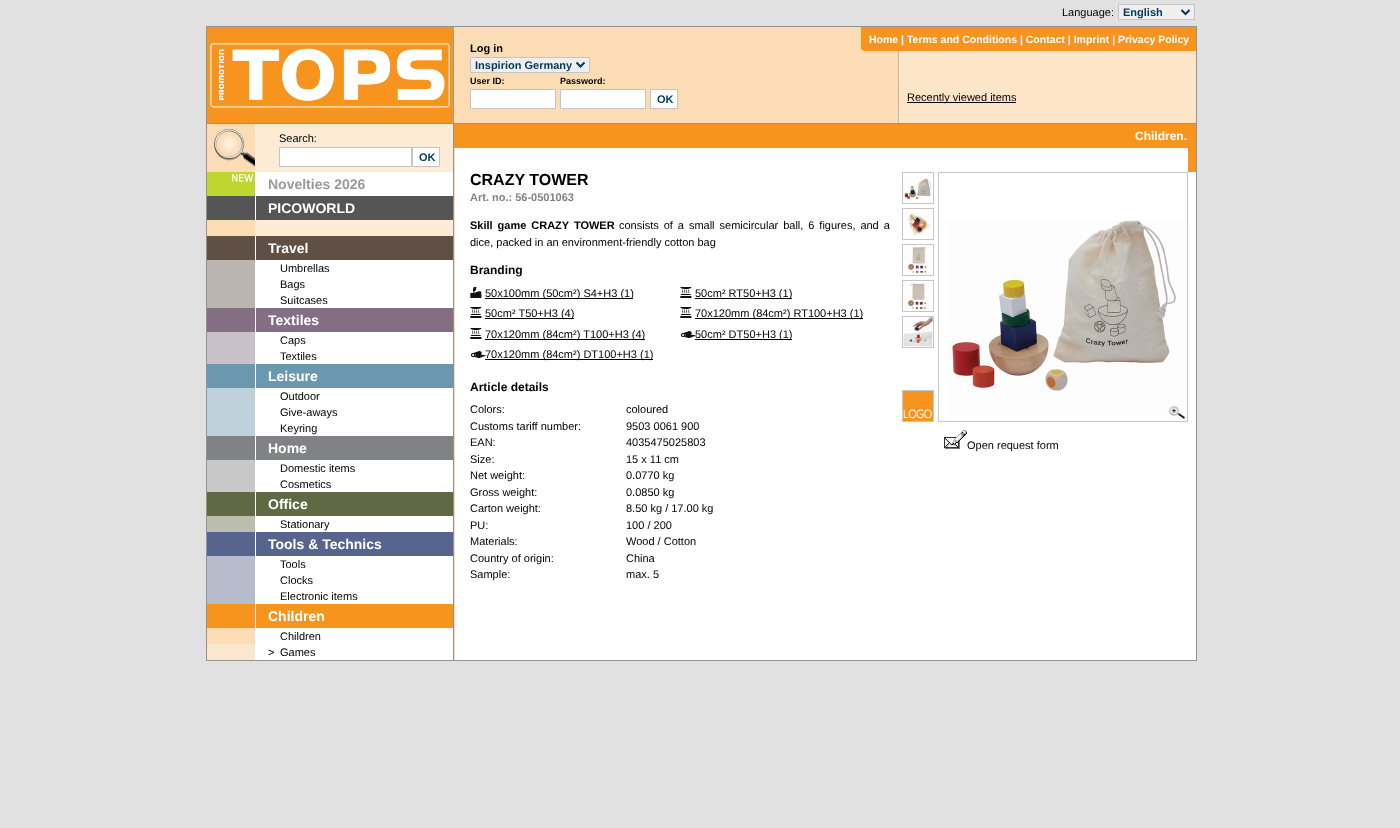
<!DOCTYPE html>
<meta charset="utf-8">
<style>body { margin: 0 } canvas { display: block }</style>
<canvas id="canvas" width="1400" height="828"></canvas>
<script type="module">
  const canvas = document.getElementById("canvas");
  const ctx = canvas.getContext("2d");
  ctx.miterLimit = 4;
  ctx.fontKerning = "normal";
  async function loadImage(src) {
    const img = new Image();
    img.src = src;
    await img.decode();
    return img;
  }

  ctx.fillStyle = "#e1e1e1";
  ctx.fillRect(0, 0, 1400, 828);
  ctx.font = "11px Liberation Sans";
  ctx.fillStyle = "#000000";
  ctx.fillText("Language:", 1062, 16);
  ctx.fillStyle = "#efefef";
  ctx.beginPath();
  ctx.rect(1118.5, 4.5, 76, 15);
  ctx.fill();
  ctx.strokeStyle = "#c4c4c4";
  ctx.stroke();
  ctx.beginPath();
  ctx.moveTo(1181.5, 10);
  ctx.lineTo(1185.5, 14);
  ctx.lineTo(1189.5, 10);
  ctx.strokeStyle = "#00395e";
  ctx.lineWidth = 2;
  ctx.stroke();
  ctx.font = "bold 11px Liberation Sans";
  ctx.fillStyle = "#00395e";
  ctx.fillText("English", 1123, 16);
  ctx.strokeStyle = "#929292";
  ctx.lineWidth = 1;
  ctx.strokeRect(206.5, 26.5, 990, 634);
  ctx.fillStyle = "#f7941d";
  ctx.fillRect(207, 27, 3, 96);
  ctx.drawImage(await loadImage("img1.png"), 210, 27, 244, 96);
  ctx.fillStyle = "#fcdcb5";
  ctx.fillRect(454, 27, 444, 96);
  ctx.fillStyle = "#f7941d";
  ctx.fillRect(861, 27, 335, 24);
  ctx.font = "bold 10.5px Liberation Sans";
  ctx.fillStyle = "#ffffff";
  ctx.fillText("Home | Terms and Conditions | Contact | Imprint | Privacy Policy", 869, 43);
  ctx.drawImage(await loadImage("img2.png"), 861, 49, 2, 2);
  ctx.font = "bold 11px Liberation Sans";
  ctx.fillStyle = "#000000";
  ctx.fillText("Log in", 470, 52);
  ctx.fillStyle = "#efefef";
  ctx.beginPath();
  ctx.rect(470.5, 57.5, 119, 15);
  ctx.fill();
  ctx.strokeStyle = "#c4c4c4";
  ctx.stroke();
  ctx.beginPath();
  ctx.moveTo(576.5, 62.5);
  ctx.lineTo(580.5, 66.5);
  ctx.lineTo(584.5, 62.5);
  ctx.strokeStyle = "#00395e";
  ctx.lineWidth = 2;
  ctx.stroke();
  ctx.fillStyle = "#00395e";
  ctx.fillText("Inspirion Germany", 475, 69);
  ctx.font = "bold 9px Liberation Sans";
  ctx.fillStyle = "#000000";
  ctx.fillText("User ID:", 470, 84);
  ctx.fillText("Password:", 560, 84);
  ctx.fillStyle = "#ffffff";
  ctx.beginPath();
  ctx.rect(470.5, 89.5, 85, 19);
  ctx.fill();
  ctx.strokeStyle = "#c4c4c4";
  ctx.lineWidth = 1;
  ctx.stroke();
  ctx.beginPath();
  ctx.rect(560.5, 89.5, 85, 19);
  ctx.fill();
  ctx.stroke();
  ctx.beginPath();
  ctx.rect(650.5, 89.5, 27, 19);
  ctx.fill();
  ctx.stroke();
  ctx.font = "bold 11px Liberation Sans";
  ctx.fillStyle = "#00395e";
  ctx.fillText("OK", 657, 103);
  ctx.fillStyle = "#fde5c8";
  ctx.fillRect(899, 51, 297, 72);
  ctx.fillStyle = "#cab7a0";
  ctx.fillRect(898, 51, 1, 80);
  ctx.fillStyle = "#000000";
  ctx.fillRect(907, 102, 109, 1);
  ctx.font = "11px Liberation Sans";
  ctx.fillText("Recently viewed items", 907, 101);
  ctx.fillStyle = "#929292";
  ctx.fillRect(207, 123, 989, 1);
  ctx.fillStyle = "#ffffff";
  ctx.fillRect(455, 148, 741, 512);
  ctx.drawImage(await loadImage("img3.png"), 207, 124, 248, 536);
  ctx.drawImage(await loadImage("img4.png"), 214, 129, 41, 38);
  ctx.fillStyle = "#000000";
  ctx.fillText("Search:", 279, 142);
  ctx.fillStyle = "#ffffff";
  ctx.beginPath();
  ctx.rect(279.5, 147.5, 132, 19);
  ctx.fill();
  ctx.stroke();
  ctx.beginPath();
  ctx.rect(412.5, 147.5, 27, 19);
  ctx.fill();
  ctx.stroke();
  ctx.font = "bold 11px Liberation Sans";
  ctx.fillStyle = "#00395e";
  ctx.fillText("OK", 419, 161);
  ctx.fillStyle = "#bfd630";
  ctx.fillRect(207, 172, 48, 24);
  ctx.drawImage(await loadImage("img5.png"), 232, 174, 22, 8);
  ctx.fillStyle = "#ffffff";
  ctx.fillRect(255, 172, 198, 24);
  ctx.font = "bold 14px Liberation Sans";
  ctx.fillStyle = "#999999";
  ctx.fillText("Novelties 2026", 268, 189);
  ctx.fillStyle = "#555555";
  ctx.fillRect(207, 196, 48, 24);
  ctx.fillStyle = "#ffffff";
  ctx.fillRect(255, 196, 1, 24);
  ctx.fillStyle = "#555555";
  ctx.fillRect(256, 196, 197, 24);
  ctx.fillStyle = "#ffffff";
  ctx.fillText("PICOWORLD", 268, 213);
  ctx.fillStyle = "#604f44";
  ctx.fillRect(207, 236, 48, 24);
  ctx.fillStyle = "#ffffff";
  ctx.fillRect(255, 236, 1, 424);
  ctx.fillStyle = "#604f44";
  ctx.fillRect(256, 236, 197, 24);
  ctx.fillStyle = "#ffffff";
  ctx.fillText("Travel", 268, 253);
  ctx.fillStyle = "#bbb4af";
  ctx.fillRect(207, 260, 48, 48);
  ctx.fillStyle = "#ffffff";
  ctx.fillRect(256, 260, 197, 48);
  ctx.font = "11px Liberation Sans";
  ctx.fillStyle = "#000000";
  ctx.fillText("Umbrellas", 280, 272);
  ctx.fillText("Bags", 280, 288);
  ctx.fillText("Suitcases", 280, 304);
  ctx.fillStyle = "#846e84";
  ctx.fillRect(207, 308, 48, 24);
  ctx.fillRect(256, 308, 197, 24);
  ctx.font = "bold 14px Liberation Sans";
  ctx.fillStyle = "#ffffff";
  ctx.fillText("Textiles", 268, 325);
  ctx.fillStyle = "#c9c0c9";
  ctx.fillRect(207, 332, 48, 32);
  ctx.fillStyle = "#ffffff";
  ctx.fillRect(256, 332, 197, 32);
  ctx.font = "11px Liberation Sans";
  ctx.fillStyle = "#000000";
  ctx.fillText("Caps", 280, 344);
  ctx.fillText("Textiles", 280, 360);
  ctx.fillStyle = "#6b98ae";
  ctx.fillRect(207, 364, 48, 24);
  ctx.fillRect(256, 364, 197, 24);
  ctx.font = "bold 14px Liberation Sans";
  ctx.fillStyle = "#ffffff";
  ctx.fillText("Leisure", 268, 381);
  ctx.fillStyle = "#bfd1da";
  ctx.fillRect(207, 388, 48, 48);
  ctx.fillStyle = "#ffffff";
  ctx.fillRect(256, 388, 197, 48);
  ctx.font = "11px Liberation Sans";
  ctx.fillStyle = "#000000";
  ctx.fillText("Outdoor", 280, 400);
  ctx.fillText("Give-aways", 280, 416);
  ctx.fillText("Keyring", 280, 432);
  ctx.fillStyle = "#818284";
  ctx.fillRect(207, 436, 48, 24);
  ctx.fillRect(256, 436, 197, 24);
  ctx.font = "bold 14px Liberation Sans";
  ctx.fillStyle = "#ffffff";
  ctx.fillText("Home", 268, 453);
  ctx.fillStyle = "#c8c8c9";
  ctx.fillRect(207, 460, 48, 32);
  ctx.fillStyle = "#ffffff";
  ctx.fillRect(256, 460, 197, 32);
  ctx.font = "11px Liberation Sans";
  ctx.fillStyle = "#000000";
  ctx.fillText("Domestic items", 280, 472);
  ctx.fillText("Cosmetics", 280, 488);
  ctx.fillStyle = "#606944";
  ctx.fillRect(207, 492, 48, 24);
  ctx.fillRect(256, 492, 197, 24);
  ctx.font = "bold 14px Liberation Sans";
  ctx.fillStyle = "#ffffff";
  ctx.fillText("Office", 268, 509);
  ctx.fillStyle = "#bbbeaf";
  ctx.fillRect(207, 516, 48, 16);
  ctx.fillStyle = "#ffffff";
  ctx.fillRect(256, 516, 197, 16);
  ctx.font = "11px Liberation Sans";
  ctx.fillStyle = "#000000";
  ctx.fillText("Stationary", 280, 528);
  ctx.fillStyle = "#56648e";
  ctx.fillRect(207, 532, 48, 24);
  ctx.fillRect(256, 532, 197, 24);
  ctx.font = "bold 14px Liberation Sans";
  ctx.fillStyle = "#ffffff";
  ctx.fillText("Tools & Technics", 268, 549);
  ctx.fillStyle = "#b7bccd";
  ctx.fillRect(207, 556, 48, 48);
  ctx.fillStyle = "#ffffff";
  ctx.fillRect(256, 556, 197, 48);
  ctx.font = "11px Liberation Sans";
  ctx.fillStyle = "#000000";
  ctx.fillText("Tools", 280, 568);
  ctx.fillText("Clocks", 280, 584);
  ctx.fillText("Electronic items", 280, 600);
  ctx.fillStyle = "#f7941d";
  ctx.fillRect(207, 604, 48, 24);
  ctx.fillRect(256, 604, 197, 24);
  ctx.font = "bold 14px Liberation Sans";
  ctx.fillStyle = "#ffffff";
  ctx.fillText("Children", 268, 621);
  ctx.fillRect(256, 628, 197, 32);
  ctx.font = "11px Liberation Sans";
  ctx.fillStyle = "#000000";
  ctx.fillText("Children", 280, 640);
  ctx.fillStyle = "#fbe7d0";
  ctx.fillRect(207, 644, 48, 16);
  ctx.fillStyle = "#000000";
  ctx.fillText(">", 268, 656);
  ctx.fillText("Games", 280, 656);
  ctx.fillStyle = "#f7941d";
  ctx.fillRect(454, 124, 742, 24);
  ctx.font = "bold 12px Liberation Sans";
  ctx.fillStyle = "#ffffff";
  ctx.fillText("Children.", 1135, 140);
  ctx.fillStyle = "#f7941d";
  ctx.fillRect(1188, 148, 8, 24);
  ctx.font = "bold 16px Liberation Sans";
  ctx.fillStyle = "#000000";
  ctx.fillText("CRAZY TOWER", 470, 185);
  ctx.font = "bold 11px Liberation Sans";
  ctx.fillStyle = "#818284";
  ctx.fillText("Art. no.: 56-0501063", 470, 201);
  ctx.wordSpacing = "1.9px";
  ctx.fillStyle = "#000000";
  ctx.fillText("Skill game CRAZY TOWER", 470, 229);
  ctx.font = "11px Liberation Sans";
  ctx.fillText("consists of a small semicircular ball, 6 figures, and a", 619, 229);
  ctx.wordSpacing = "0px";
  ctx.fillText("dice, packed in an environment-friendly cotton bag", 470, 246);
  ctx.font = "bold 12px Liberation Sans";
  ctx.fillText("Branding", 470, 274);
  ctx.drawImage(await loadImage("img6.png"), 470, 287, 12, 11);
  ctx.fillRect(485, 298, 148, 1);
  ctx.font = "11px Liberation Sans";
  ctx.fillText("50x100mm (50cm²) S4+H3 (1)", 485, 297);
  ctx.drawImage(await loadImage("img7.png"), 680, 287, 12, 11);
  ctx.fillRect(695, 298, 97, 1);
  ctx.fillText("50cm² RT50+H3 (1)", 695, 297);
  ctx.drawImage(await loadImage("img7.png"), 470, 307, 12, 11);
  ctx.fillRect(485, 318, 89, 1);
  ctx.fillText("50cm² T50+H3 (4)", 485, 317);
  ctx.drawImage(await loadImage("img7.png"), 680, 307, 12, 11);
  ctx.fillRect(695, 318, 168, 1);
  ctx.fillText("70x120mm (84cm²) RT100+H3 (1)", 695, 317);
  ctx.drawImage(await loadImage("img7.png"), 470, 328, 12, 11);
  ctx.fillRect(485, 339, 160, 1);
  ctx.fillText("70x120mm (84cm²) T100+H3 (4)", 485, 338);
  ctx.drawImage(await loadImage("img8.png"), 680, 331, 18, 7);
  ctx.fillRect(695, 339, 97, 1);
  ctx.fillText("50cm² DT50+H3 (1)", 695, 338);
  ctx.drawImage(await loadImage("img8.png"), 470, 351, 18, 7);
  ctx.fillRect(485, 359, 168, 1);
  ctx.fillText("70x120mm (84cm²) DT100+H3 (1)", 485, 358);
  ctx.font = "bold 12px Liberation Sans";
  ctx.fillText("Article details", 470, 391);
  ctx.font = "11px Liberation Sans";
  ctx.fillText("Colors:", 470, 413);
  ctx.fillText("coloured", 626, 413);
  ctx.fillText("Customs tariff number:", 470, 430);
  ctx.fillText("9503 0061 900", 626, 430);
  ctx.fillText("EAN:", 470, 446);
  ctx.fillText("4035475025803", 626, 446);
  ctx.fillText("Size:", 470, 463);
  ctx.fillText("15 x 11 cm", 626, 463);
  ctx.fillText("Net weight:", 470, 479);
  ctx.fillText("0.0770 kg", 626, 479);
  ctx.fillText("Gross weight:", 470, 496);
  ctx.fillText("0.0850 kg", 626, 496);
  ctx.fillText("Carton weight:", 470, 512);
  ctx.fillText("8.50 kg / 17.00 kg", 626, 512);
  ctx.fillText("PU:", 470, 529);
  ctx.fillText("100 / 200", 626, 529);
  ctx.fillText("Materials:", 470, 545);
  ctx.fillText("Wood / Cotton", 626, 545);
  ctx.fillText("Country of origin:", 470, 562);
  ctx.fillText("China", 626, 562);
  ctx.fillText("Sample:", 470, 578);
  ctx.fillText("max. 5", 626, 578);
  ctx.strokeStyle = "#c6c6c6";
  ctx.strokeRect(902.5, 172.5, 31, 31);
  ctx.drawImage(await loadImage("img9.png"), 903, 177, 29, 26);
  ctx.strokeRect(902.5, 208.5, 31, 31);
  ctx.drawImage(await loadImage("img10.png"), 905, 212, 26, 24);
  ctx.strokeRect(902.5, 244.5, 31, 31);
  ctx.drawImage(await loadImage("img11.png"), 904, 245, 24, 30);
  ctx.strokeRect(902.5, 280.5, 31, 31);
  ctx.drawImage(await loadImage("img12.png"), 903, 282, 24, 29);
  ctx.strokeRect(902.5, 316.5, 31, 31);
  ctx.drawImage(await loadImage("img13.png"), 903, 317, 30, 30);
  ctx.strokeRect(938.5, 172.5, 249, 249);
  ctx.drawImage(await loadImage("img14.png"), 947, 220, 238, 199);
  ctx.fillStyle = "#f7941d";
  ctx.beginPath();
  ctx.rect(902.5, 390.5, 31, 31);
  ctx.fill();
  ctx.stroke();
  ctx.drawImage(await loadImage("img15.png"), 903, 409, 29, 10);
  ctx.drawImage(await loadImage("img16.png"), 944, 430, 23, 19);
  ctx.fillStyle = "#000000";
  ctx.fillText("Open request form", 967, 449);
</script>
